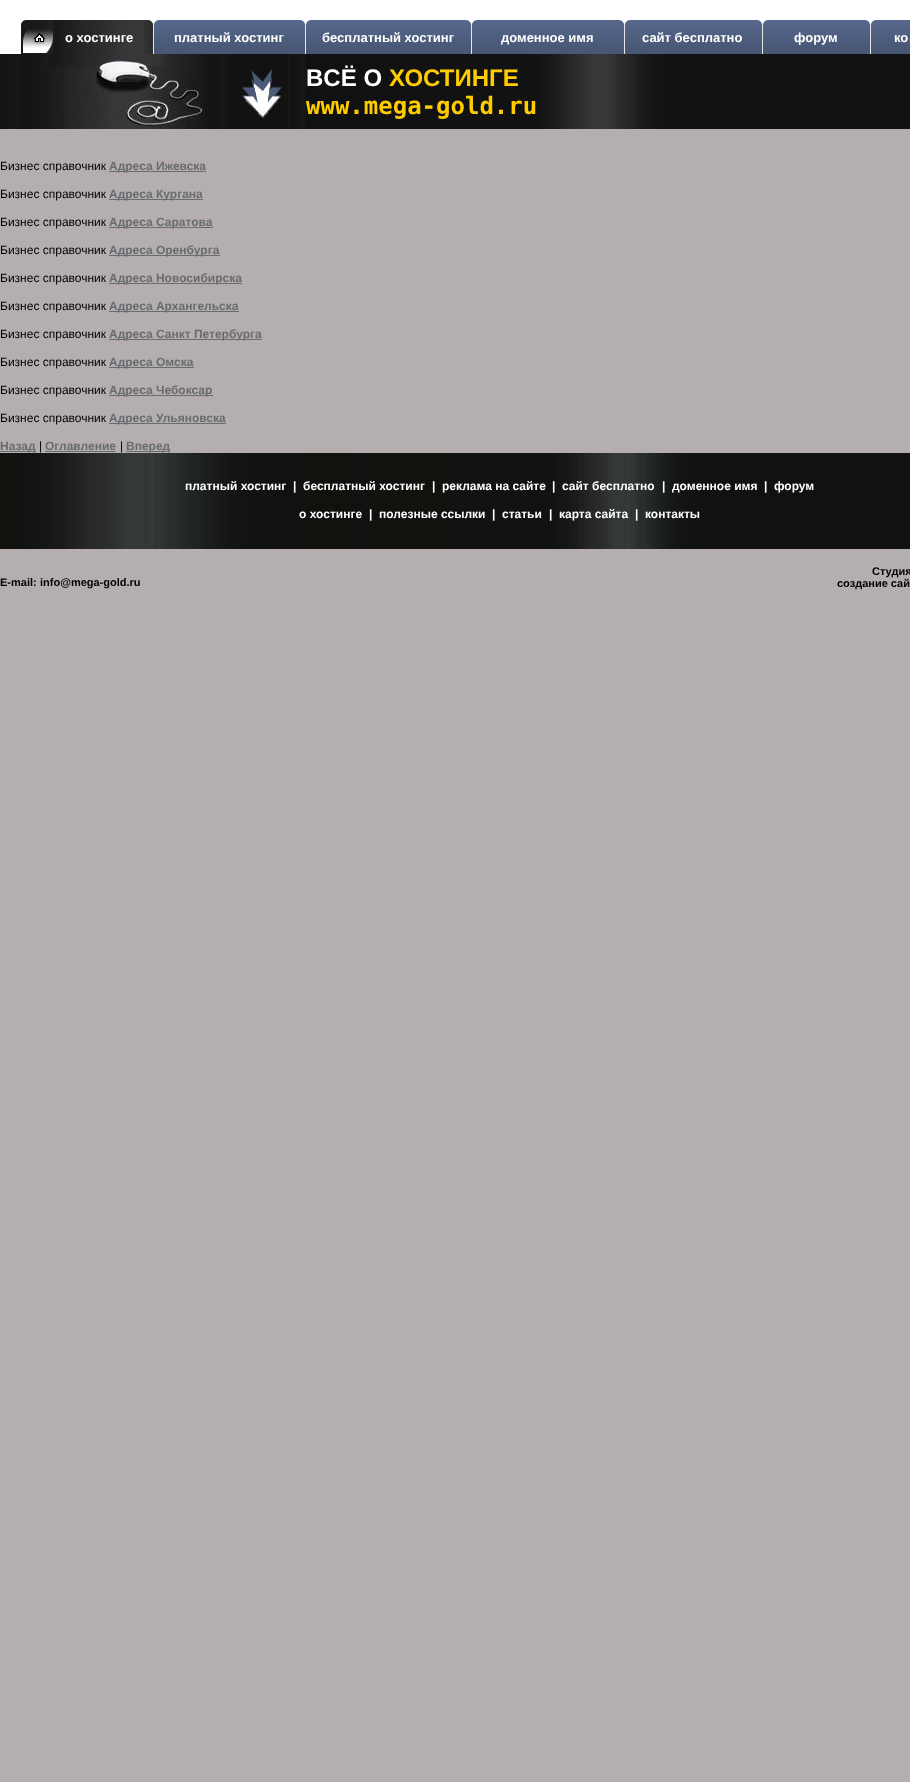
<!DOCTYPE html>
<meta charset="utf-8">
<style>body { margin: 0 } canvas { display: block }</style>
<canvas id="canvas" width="910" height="1782"></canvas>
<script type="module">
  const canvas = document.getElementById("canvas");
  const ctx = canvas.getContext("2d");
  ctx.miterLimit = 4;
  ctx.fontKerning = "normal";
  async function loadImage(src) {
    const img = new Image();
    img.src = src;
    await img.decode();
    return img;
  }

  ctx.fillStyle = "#b4aeae";
  ctx.fillRect(0, 0, 910, 1782);
  ctx.fillStyle = "#ffffff";
  ctx.fillRect(0, 0, 910, 54);
  ctx.drawImage(await loadImage("img1.png"), 21, 20, 33, 34);
  ctx.drawImage(await loadImage("img2.png"), 54, 20, 90, 34);
  ctx.font = "bold 13px Liberation Sans";
  ctx.fillText("о хостинге", 65, 42);
  ctx.drawImage(await loadImage("img3.png"), 144, 20, 9, 34);
  ctx.drawImage(await loadImage("img4.png"), 153, 20, 9, 34);
  ctx.drawImage(await loadImage("img5.png"), 162, 20, 134, 34);
  ctx.fillText("платный хостинг", 174, 42);
  ctx.drawImage(await loadImage("img6.png"), 296, 20, 9, 34);
  ctx.drawImage(await loadImage("img4.png"), 305, 20, 9, 34);
  ctx.drawImage(await loadImage("img7.png"), 314, 20, 148, 34);
  ctx.fillText("бесплатный хостинг", 322, 42);
  ctx.drawImage(await loadImage("img6.png"), 462, 20, 9, 34);
  ctx.drawImage(await loadImage("img4.png"), 471, 20, 9, 34);
  ctx.drawImage(await loadImage("img8.png"), 480, 20, 135, 34);
  ctx.fillText("доменное имя", 501, 42);
  ctx.drawImage(await loadImage("img6.png"), 615, 20, 9, 34);
  ctx.drawImage(await loadImage("img4.png"), 624, 20, 9, 34);
  ctx.drawImage(await loadImage("img9.png"), 633, 20, 120, 34);
  ctx.fillText("сайт бесплатно", 642, 42);
  ctx.drawImage(await loadImage("img6.png"), 753, 20, 9, 34);
  ctx.drawImage(await loadImage("img4.png"), 762, 20, 9, 34);
  ctx.drawImage(await loadImage("img10.png"), 771, 20, 90, 34);
  ctx.fillText("форум", 794, 42);
  ctx.drawImage(await loadImage("img6.png"), 861, 20, 9, 34);
  ctx.drawImage(await loadImage("img4.png"), 870, 20, 9, 34);
  ctx.drawImage(await loadImage("img11.png"), 879, 20, 31, 34);
  ctx.fillText("ко", 894, 42);
  ctx.drawImage(await loadImage("img12.png"), 0, 54, 36, 75);
  ctx.drawImage(await loadImage("img13.png"), 36, 54, 174, 75);
  ctx.drawImage(await loadImage("img14.png"), 37, 54, 168, 75);
  ctx.drawImage(await loadImage("img15.png"), 210, 54, 96, 75);
  ctx.drawImage(await loadImage("img16.png"), 227, 54, 61, 75);
  ctx.drawImage(await loadImage("img17.png"), 306, 54, 604, 75);
  ctx.font = "bold 24px Liberation Sans";
  ctx.fillText("ВCЁ О", 306, 86);
  ctx.fillStyle = "#ffcc00";
  ctx.fillText("ХОСТИНГЕ", 389, 86);
  ctx.font = "bold 24px DejaVu Sans Mono";
  ctx.fillText("www.mega-gold.ru", 306, 114);
  ctx.font = "12px Liberation Sans";
  ctx.fillStyle = "#000000";
  ctx.fillText("Бизнес справочник", 0, 170);
  ctx.fillStyle = "#686b6f";
  ctx.fillRect(109, 171, 97, 1);
  ctx.font = "bold 12px Liberation Sans";
  ctx.fillText("Адреса Ижевска", 109, 170);
  ctx.font = "12px Liberation Sans";
  ctx.fillStyle = "#000000";
  ctx.fillText("Бизнес справочник", 0, 198);
  ctx.fillStyle = "#686b6f";
  ctx.fillRect(109, 199, 94, 1);
  ctx.font = "bold 12px Liberation Sans";
  ctx.fillText("Адреса Кургана", 109, 198);
  ctx.font = "12px Liberation Sans";
  ctx.fillStyle = "#000000";
  ctx.fillText("Бизнес справочник", 0, 226);
  ctx.fillStyle = "#686b6f";
  ctx.fillRect(109, 227, 104, 1);
  ctx.font = "bold 12px Liberation Sans";
  ctx.fillText("Адреса Саратова", 109, 226);
  ctx.font = "12px Liberation Sans";
  ctx.fillStyle = "#000000";
  ctx.fillText("Бизнес справочник", 0, 254);
  ctx.fillStyle = "#686b6f";
  ctx.fillRect(109, 255, 111, 1);
  ctx.font = "bold 12px Liberation Sans";
  ctx.fillText("Адреса Оренбурга", 109, 254);
  ctx.font = "12px Liberation Sans";
  ctx.fillStyle = "#000000";
  ctx.fillText("Бизнес справочник", 0, 282);
  ctx.fillStyle = "#686b6f";
  ctx.fillRect(109, 283, 133, 1);
  ctx.font = "bold 12px Liberation Sans";
  ctx.fillText("Адреса Новосибирска", 109, 282);
  ctx.font = "12px Liberation Sans";
  ctx.fillStyle = "#000000";
  ctx.fillText("Бизнес справочник", 0, 310);
  ctx.fillStyle = "#686b6f";
  ctx.fillRect(109, 311, 130, 1);
  ctx.font = "bold 12px Liberation Sans";
  ctx.fillText("Адреса Архангельска", 109, 310);
  ctx.font = "12px Liberation Sans";
  ctx.fillStyle = "#000000";
  ctx.fillText("Бизнес справочник", 0, 338);
  ctx.fillStyle = "#686b6f";
  ctx.fillRect(109, 339, 153, 1);
  ctx.font = "bold 12px Liberation Sans";
  ctx.fillText("Адреса Санкт Петербурга", 109, 338);
  ctx.font = "12px Liberation Sans";
  ctx.fillStyle = "#000000";
  ctx.fillText("Бизнес справочник", 0, 366);
  ctx.fillStyle = "#686b6f";
  ctx.fillRect(109, 367, 85, 1);
  ctx.font = "bold 12px Liberation Sans";
  ctx.fillText("Адреса Омска", 109, 366);
  ctx.font = "12px Liberation Sans";
  ctx.fillStyle = "#000000";
  ctx.fillText("Бизнес справочник", 0, 394);
  ctx.fillStyle = "#686b6f";
  ctx.fillRect(109, 395, 104, 1);
  ctx.font = "bold 12px Liberation Sans";
  ctx.fillText("Адреса Чебоксар", 109, 394);
  ctx.font = "12px Liberation Sans";
  ctx.fillStyle = "#000000";
  ctx.fillText("Бизнес справочник", 0, 422);
  ctx.fillStyle = "#686b6f";
  ctx.fillRect(109, 423, 117, 1);
  ctx.font = "bold 12px Liberation Sans";
  ctx.fillText("Адреса Ульяновска", 109, 422);
  ctx.fillRect(0, 451, 36, 1);
  ctx.fillText("Назад", 0, 450);
  ctx.font = "12px Liberation Sans";
  ctx.fillStyle = "#000000";
  ctx.fillText("|", 39, 450);
  ctx.font = "bold 12px Liberation Sans";
  ctx.fillStyle = "#686b6f";
  ctx.fillText("Оглавление", 45, 450);
  ctx.fillRect(45, 451, 71, 1);
  ctx.font = "12px Liberation Sans";
  ctx.fillStyle = "#000000";
  ctx.fillText("|", 120, 450);
  ctx.fillStyle = "#686b6f";
  ctx.fillRect(126, 451, 44, 1);
  ctx.font = "bold 12px Liberation Sans";
  ctx.fillText("Вперед", 126, 450);
  ctx.drawImage(await loadImage("img18.png"), 0, 453, 910, 96);
  ctx.fillStyle = "#ffffff";
  ctx.fillText("платный хостинг", 185, 490);
  ctx.fillText("|", 293, 490);
  ctx.fillText("бесплатный хостинг", 303, 490);
  ctx.fillText("|", 432, 490);
  ctx.fillText("реклама на сайте", 442, 490);
  ctx.fillText("|", 552, 490);
  ctx.fillText("сайт бесплатно", 562, 490);
  ctx.fillText("|", 662, 490);
  ctx.fillText("доменное имя", 672, 490);
  ctx.fillText("|", 764, 490);
  ctx.fillText("форум", 774, 490);
  ctx.fillText("о хостинге", 299, 518);
  ctx.fillText("|", 369, 518);
  ctx.fillText("полезные ссылки", 379, 518);
  ctx.fillText("|", 492, 518);
  ctx.fillText("статьи", 502, 518);
  ctx.fillText("|", 549, 518);
  ctx.fillText("карта сайта", 559, 518);
  ctx.fillText("|", 635, 518);
  ctx.fillText("контакты", 645, 518);
  ctx.font = "bold 11px Liberation Sans";
  ctx.fillStyle = "#000000";
  ctx.fillText("E-mail:", 0, 586);
  ctx.fillText("info@mega-gold.ru", 40, 586);
  ctx.fillText("Студия", 872, 575);
  ctx.fillText("создание сай", 837, 587);
</script>
